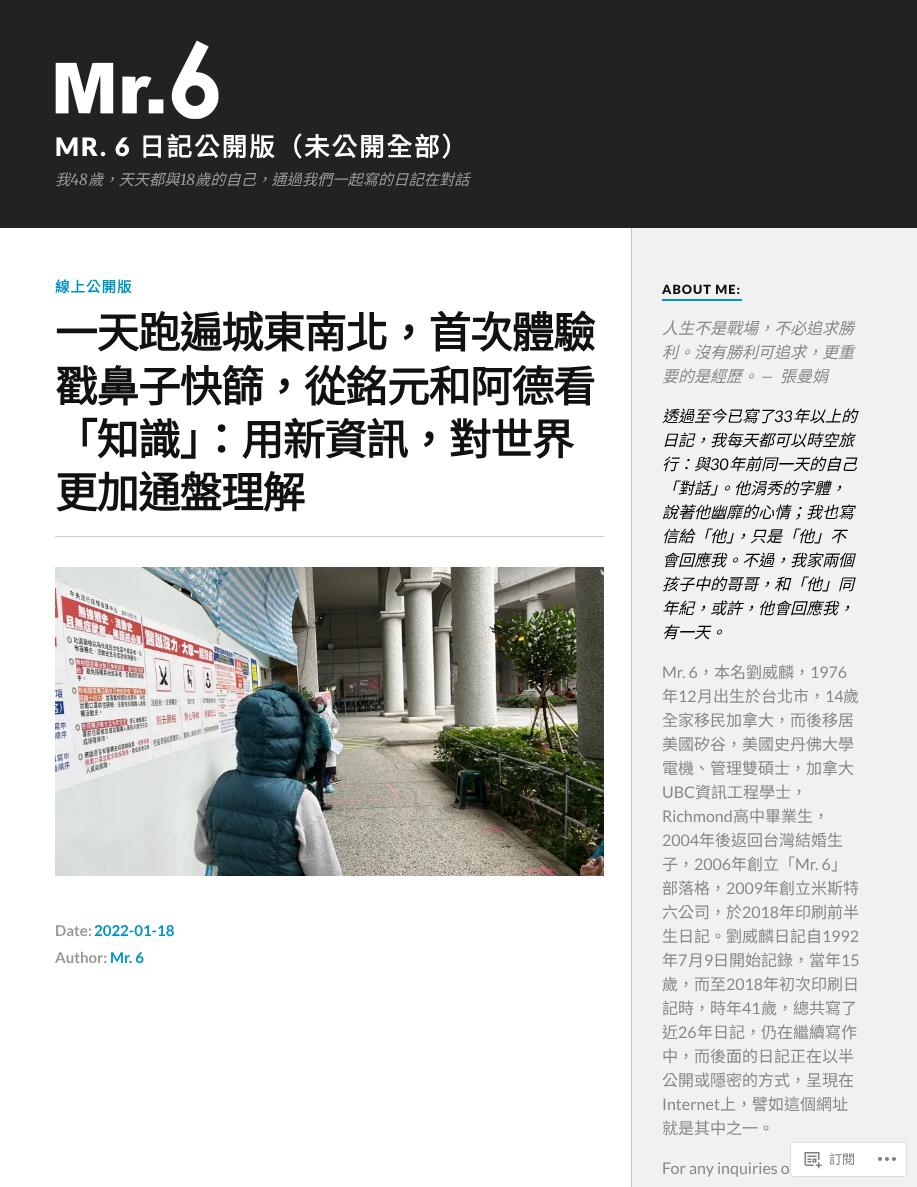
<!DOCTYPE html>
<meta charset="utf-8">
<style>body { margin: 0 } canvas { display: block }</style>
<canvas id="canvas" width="917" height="1187"></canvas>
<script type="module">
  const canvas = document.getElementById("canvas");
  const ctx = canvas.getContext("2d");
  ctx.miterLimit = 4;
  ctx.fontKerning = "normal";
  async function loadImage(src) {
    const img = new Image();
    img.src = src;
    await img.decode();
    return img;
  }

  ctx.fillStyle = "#f1f1f1";
  ctx.fillRect(0, 0, 917, 1187);
  ctx.fillStyle = "#222222";
  ctx.fillRect(0, 0, 917, 228);
  ctx.drawImage(await loadImage("img1.png"), 55, 40, 164, 79);
  ctx.letterSpacing = "2px";
  ctx.font = "900 25.5px Lato";
  ctx.fillStyle = "#ffffff";
  ctx.fillText("MR. 6", 55, 156);
  ctx.font = "bold 25.5px Noto Sans CJK TC";
  ctx.fillText("日記公開版（未公開全部）", 139, 156);
  ctx.letterSpacing = "0px";
  ctx.font = "italic 15.25px Noto Sans CJK TC";
  ctx.fillStyle = "#999999";
  ctx.fillText("我", 55, 185);
  ctx.font = "italic 300 15.25px Merriweather";
  ctx.fillText("48", 70, 185);
  ctx.font = "italic 15.25px Noto Sans CJK TC";
  ctx.fillText("歲，天天都與", 88, 185);
  ctx.font = "italic 300 15.25px Merriweather";
  ctx.fillText("18", 180, 185);
  ctx.font = "italic 15.25px Noto Sans CJK TC";
  ctx.fillText("歲的自己，通過我們一起寫的日記在對話", 195, 185);
  ctx.fillStyle = "#ffffff";
  ctx.fillRect(0, 228, 631, 959);
  ctx.letterSpacing = "1px";
  ctx.font = "bold 14.5px Noto Sans CJK TC";
  ctx.fillStyle = "#0093c2";
  ctx.fillText("線上公開版", 55, 292);
  ctx.fillStyle = "#cccccc";
  ctx.fillRect(55, 536, 549, 1);
  ctx.letterSpacing = "-1px";
  ctx.font = "bold 42.5px Noto Sans CJK TC";
  ctx.fillStyle = "#111111";
  ctx.fillText("一天跑遍城東南北，首次體驗", 55, 348);
  ctx.fillText("戳鼻子快篩，從銘元和阿德看", 55, 402);
  ctx.fillText("「知識」：用新資訊，對世界", 55, 455);
  ctx.fillText("更加通盤理解", 55, 508);
  ctx.drawImage(await loadImage("img2.png"), 55, 567, 549, 309);
  ctx.letterSpacing = "0px";
  ctx.font = "bold 15px Lato";
  ctx.fillStyle = "#999999";
  ctx.fillText("Date:", 55, 936);
  ctx.fillStyle = "#0093c2";
  ctx.fillText("2022-01-18", 94, 936);
  ctx.fillStyle = "#999999";
  ctx.fillText("Author:", 55, 963);
  ctx.fillStyle = "#0093c2";
  ctx.fillText("Mr. 6", 110, 963);
  ctx.fillStyle = "#c1c1c1";
  ctx.fillRect(631, 228, 1, 959);
  ctx.fillStyle = "#0093c2";
  ctx.fillRect(662, 299, 80, 2);
  ctx.letterSpacing = "1px";
  ctx.font = "900 12.75px Lato";
  ctx.fillStyle = "#111111";
  ctx.fillText("ABOUT ME:", 662, 294);
  ctx.letterSpacing = "0px";
  ctx.font = "italic 16px Noto Sans CJK TC";
  ctx.fillStyle = "#888888";
  ctx.fillText("人生不是戰場，不必追求勝", 662, 334);
  ctx.fillText("利。沒有勝利可追求，更重", 662, 358);
  ctx.fillText("要的是經歷。", 662, 382);
  ctx.font = "italic 16px Lato";
  ctx.fillText("—", 761, 382);
  ctx.font = "italic 16px Noto Sans CJK TC";
  ctx.fillText("張曼娟", 780, 382);
  ctx.fillStyle = "#000000";
  ctx.fillText("透過至今已寫了", 662, 422);
  ctx.font = "italic 16px Lato";
  ctx.fillText("33", 774, 422);
  ctx.font = "italic 16px Noto Sans CJK TC";
  ctx.fillText("年以上的", 793, 422);
  ctx.fillText("日記，我每天都可以時空旅", 662, 446);
  ctx.fillText("行：與", 662, 470);
  ctx.font = "italic 16px Lato";
  ctx.fillText("30", 710, 470);
  ctx.font = "italic 16px Noto Sans CJK TC";
  ctx.fillText("年前同一天的自己", 729, 470);
  ctx.fillText("「對話」。他涓秀的字體，", 662, 494);
  ctx.fillText("說著他幽靡的心情；我也寫", 662, 518);
  ctx.fillText("信給「他」，只是「他」不", 662, 542);
  ctx.fillText("會回應我。不過，我家兩個", 662, 566);
  ctx.fillText("孩子中的哥哥，和「他」同", 662, 590);
  ctx.fillText("年紀，或許，他會回應我，", 662, 614);
  ctx.fillText("有一天。", 662, 638);
  ctx.font = "16px Lato";
  ctx.fillStyle = "#888888";
  ctx.fillText("Mr. 6", 662, 678);
  ctx.font = "16px Noto Sans CJK TC";
  ctx.fillText("，本名劉威麟，", 698, 678);
  ctx.font = "16px Lato";
  ctx.fillText("1976", 810, 678);
  ctx.font = "16px Noto Sans CJK TC";
  ctx.fillText("年", 662, 702);
  ctx.font = "16px Lato";
  ctx.fillText("12", 678, 702);
  ctx.font = "16px Noto Sans CJK TC";
  ctx.fillText("月出生於台北市，", 697, 702);
  ctx.font = "16px Lato";
  ctx.fillText("14", 825, 702);
  ctx.font = "16px Noto Sans CJK TC";
  ctx.fillText("歲", 843, 702);
  ctx.fillText("全家移民加拿大，而後移居", 662, 726);
  ctx.fillText("美國矽谷，美國史丹佛大學", 662, 750);
  ctx.fillText("電機、管理雙碩士，加拿大", 662, 774);
  ctx.font = "16px Lato";
  ctx.fillText("UBC", 662, 798);
  ctx.font = "16px Noto Sans CJK TC";
  ctx.fillText("資訊工程學士，", 695, 798);
  ctx.font = "16px Lato";
  ctx.fillText("Richmond", 662, 822);
  ctx.font = "16px Noto Sans CJK TC";
  ctx.fillText("高中畢業生，", 733, 822);
  ctx.font = "16px Lato";
  ctx.fillText("2004", 662, 846);
  ctx.font = "16px Noto Sans CJK TC";
  ctx.fillText("年後返回台灣結婚生", 699, 846);
  ctx.fillText("子，", 662, 870);
  ctx.font = "16px Lato";
  ctx.fillText("2006", 694, 870);
  ctx.font = "16px Noto Sans CJK TC";
  ctx.fillText("年創立「", 731, 870);
  ctx.font = "16px Lato";
  ctx.fillText("Mr. 6", 795, 870);
  ctx.font = "16px Noto Sans CJK TC";
  ctx.fillText("」", 831, 870);
  ctx.fillText("部落格，", 662, 894);
  ctx.font = "16px Lato";
  ctx.fillText("2009", 726, 894);
  ctx.font = "16px Noto Sans CJK TC";
  ctx.fillText("年創立米斯特", 763, 894);
  ctx.fillText("六公司，於", 662, 918);
  ctx.font = "16px Lato";
  ctx.fillText("2018", 742, 918);
  ctx.font = "16px Noto Sans CJK TC";
  ctx.fillText("年印刷前半", 779, 918);
  ctx.fillText("生日記。劉威麟日記自", 662, 942);
  ctx.font = "16px Lato";
  ctx.fillText("1992", 822, 942);
  ctx.font = "16px Noto Sans CJK TC";
  ctx.fillText("年", 662, 966);
  ctx.font = "16px Lato";
  ctx.fillText("7", 678, 966);
  ctx.font = "16px Noto Sans CJK TC";
  ctx.fillText("月", 688, 966);
  ctx.font = "16px Lato";
  ctx.fillText("9", 704, 966);
  ctx.font = "16px Noto Sans CJK TC";
  ctx.fillText("日開始記錄，當年", 713, 966);
  ctx.font = "16px Lato";
  ctx.fillText("15", 841, 966);
  ctx.font = "16px Noto Sans CJK TC";
  ctx.fillText("歲，而至", 662, 990);
  ctx.font = "16px Lato";
  ctx.fillText("2018", 726, 990);
  ctx.font = "16px Noto Sans CJK TC";
  ctx.fillText("年初次印刷日", 763, 990);
  ctx.fillText("記時，時年", 662, 1014);
  ctx.font = "16px Lato";
  ctx.fillText("41", 742, 1014);
  ctx.font = "16px Noto Sans CJK TC";
  ctx.fillText("歲，總共寫了", 761, 1014);
  ctx.fillText("近", 662, 1038);
  ctx.font = "16px Lato";
  ctx.fillText("26", 678, 1038);
  ctx.font = "16px Noto Sans CJK TC";
  ctx.fillText("年日記，仍在繼續寫作", 697, 1038);
  ctx.fillText("中，而後面的日記正在以半", 662, 1062);
  ctx.fillText("公開或隱密的方式，呈現在", 662, 1086);
  ctx.font = "16px Lato";
  ctx.fillText("Internet", 662, 1110);
  ctx.font = "16px Noto Sans CJK TC";
  ctx.fillText("上，譬如這個網址", 720, 1110);
  ctx.fillText("就是其中之一。", 662, 1134);
  ctx.font = "16px Lato";
  ctx.fillText("For any inquiries o", 662, 1174);
  ctx.fillStyle = "rgba(255, 255, 255, 0.98)";
  ctx.beginPath();
  ctx.roundRect(790.5, 1142.5, 116, 34, 2.5);
  ctx.fill();
  ctx.strokeStyle = "#dcdcde";
  ctx.stroke();
  ctx.drawImage(await loadImage("img3.png"), 804, 1152, 18, 17);
  ctx.font = "13px Noto Sans CJK TC";
  ctx.fillStyle = "#7a7e84";
  ctx.fillText("訂閱", 829, 1164);
  ctx.drawImage(await loadImage("img4.png"), 878, 1157, 18, 4);
</script>
